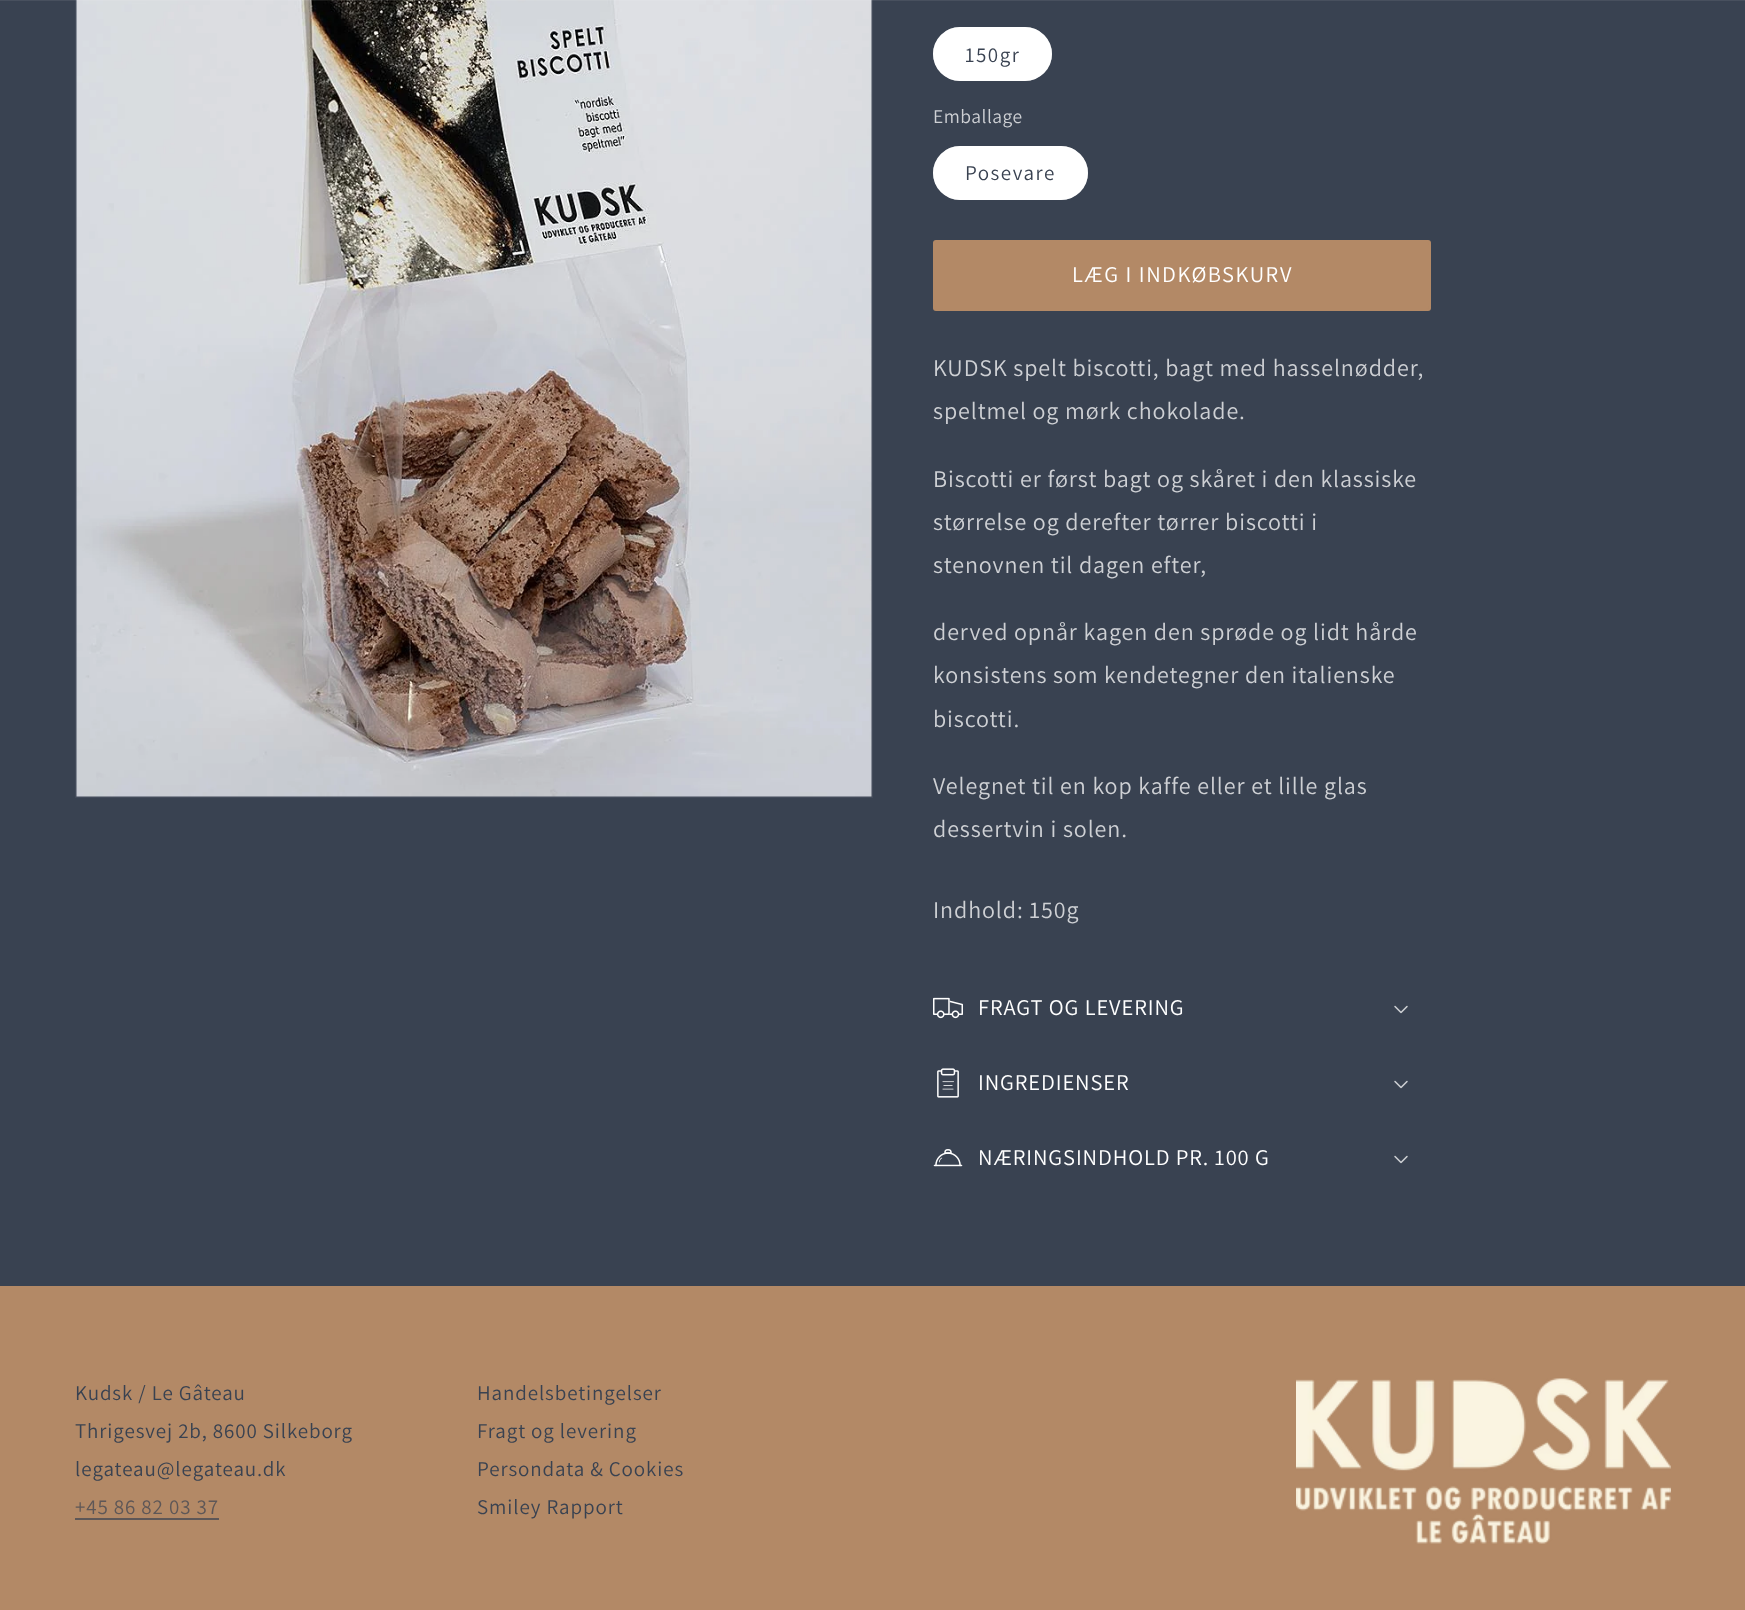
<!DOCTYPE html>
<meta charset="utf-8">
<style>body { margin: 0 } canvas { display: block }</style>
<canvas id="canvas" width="1745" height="1610"></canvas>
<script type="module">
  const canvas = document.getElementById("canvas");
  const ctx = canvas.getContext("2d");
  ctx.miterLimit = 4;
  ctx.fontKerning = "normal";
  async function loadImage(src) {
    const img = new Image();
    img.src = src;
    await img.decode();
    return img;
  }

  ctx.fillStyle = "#394251";
  ctx.fillRect(0, 0, 1745, 1610);
  ctx.strokeStyle = "#434b5a";
  ctx.lineWidth = 2;
  ctx.strokeRect(76, -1, 796, 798);
  ctx.drawImage(await loadImage("img1.png"), 76, 0, 796, 797);
  ctx.fillStyle = "rgba(255, 255, 255, 0.08)";
  ctx.fillRect(0, 0, 1745, 1);
  ctx.fillStyle = "#ffffff";
  ctx.beginPath();
  ctx.roundRect(933, 27, 119, 54, 27);
  ctx.fill();
  ctx.beginPath();
  ctx.roundRect(934, 28, 117, 52, 26);
  ctx.strokeStyle = "rgba(255, 255, 255, 0.55)";
  ctx.stroke();
  ctx.letterSpacing = "1.5px";
  ctx.font = "21px Assistant";
  ctx.fillStyle = "#394251";
  ctx.fillText("150gr", 965, 62);
  ctx.letterSpacing = "0.5px";
  ctx.font = "19.5px Assistant";
  ctx.fillStyle = "#ced0d4";
  ctx.fillText("Emballage", 933, 123);
  ctx.fillStyle = "#ffffff";
  ctx.beginPath();
  ctx.roundRect(933, 146, 155, 54, 27);
  ctx.fill();
  ctx.beginPath();
  ctx.roundRect(934, 147, 153, 52, 26);
  ctx.stroke();
  ctx.letterSpacing = "1.5px";
  ctx.font = "21px Assistant";
  ctx.fillStyle = "#394251";
  ctx.fillText("Posevare", 965, 180);
  ctx.fillStyle = "#b38966";
  ctx.beginPath();
  ctx.roundRect(933, 240, 498, 71, 3);
  ctx.fill();
  ctx.beginPath();
  ctx.roundRect(934, 241, 496, 69, 4);
  ctx.strokeStyle = "#b38966";
  ctx.stroke();
  ctx.font = "22.5px Assistant";
  ctx.fillStyle = "#ffffff";
  ctx.fillText("LÆG I INDKØBSKURV", 1072, 282);
  ctx.letterSpacing = "0.9px";
  ctx.font = "24px Assistant";
  ctx.fillStyle = "#ced0d4";
  ctx.fillText("KUDSK spelt biscotti, bagt med hasselnødder,", 933, 376);
  ctx.fillText("speltmel og mørk chokolade.", 933, 419);
  ctx.fillText("Biscotti er først bagt og skåret i den klassiske", 933, 487);
  ctx.fillText("størrelse og derefter tørrer biscotti i", 933, 530);
  ctx.fillText("stenovnen til dagen efter,", 933, 573);
  ctx.fillText("derved opnår kagen den sprøde og lidt hårde", 933, 640);
  ctx.fillText("konsistens som kendetegner den italienske", 933, 683);
  ctx.fillText("biscotti.", 933, 727);
  ctx.fillText("Velegnet til en kop kaffe eller et lille glas", 933, 794);
  ctx.fillText("dessertvin i solen.", 933, 837);
  ctx.fillText("Indhold: 150g", 933, 918);
  ctx.drawImage(await loadImage("img2.png"), 933, 997, 30, 22);
  ctx.font = "22.5px Assistant";
  ctx.fillStyle = "#ffffff";
  ctx.fillText("FRAGT OG LEVERING", 978, 1015);
  ctx.drawImage(await loadImage("img3.png"), 1394, 1005, 14, 9);
  ctx.drawImage(await loadImage("img4.png"), 937, 1068, 22, 30);
  ctx.fillText("INGREDIENSER", 978, 1090);
  ctx.drawImage(await loadImage("img3.png"), 1394, 1080, 14, 9);
  ctx.drawImage(await loadImage("img5.png"), 933, 1149, 30, 18);
  ctx.fillText("NÆRINGSINDHOLD PR. 100 G", 978, 1165);
  ctx.drawImage(await loadImage("img3.png"), 1394, 1155, 14, 9);
  ctx.fillStyle = "#b38966";
  ctx.fillRect(0, 1286, 1745, 324);
  ctx.font = "21px Assistant";
  ctx.fillStyle = "#394251";
  ctx.fillText("Kudsk / Le Gâteau", 75, 1400);
  ctx.fillText("Thrigesvej 2b, 8600 Silkeborg", 75, 1438);
  ctx.fillText("legateau@legateau.dk", 75, 1476);
  ctx.fillStyle = "#5e5757";
  ctx.fillText("+45 86 82 03 37", 75, 1514);
  ctx.fillRect(75, 1518, 144, 2);
  ctx.fillStyle = "#394251";
  ctx.fillText("Handelsbetingelser", 477, 1400);
  ctx.fillText("Fragt og levering", 477, 1438);
  ctx.fillText("Persondata & Cookies", 477, 1476);
  ctx.fillText("Smiley Rapport", 477, 1514);
  ctx.drawImage(await loadImage("img6.png"), 1296, 1378, 375, 166);
</script>
